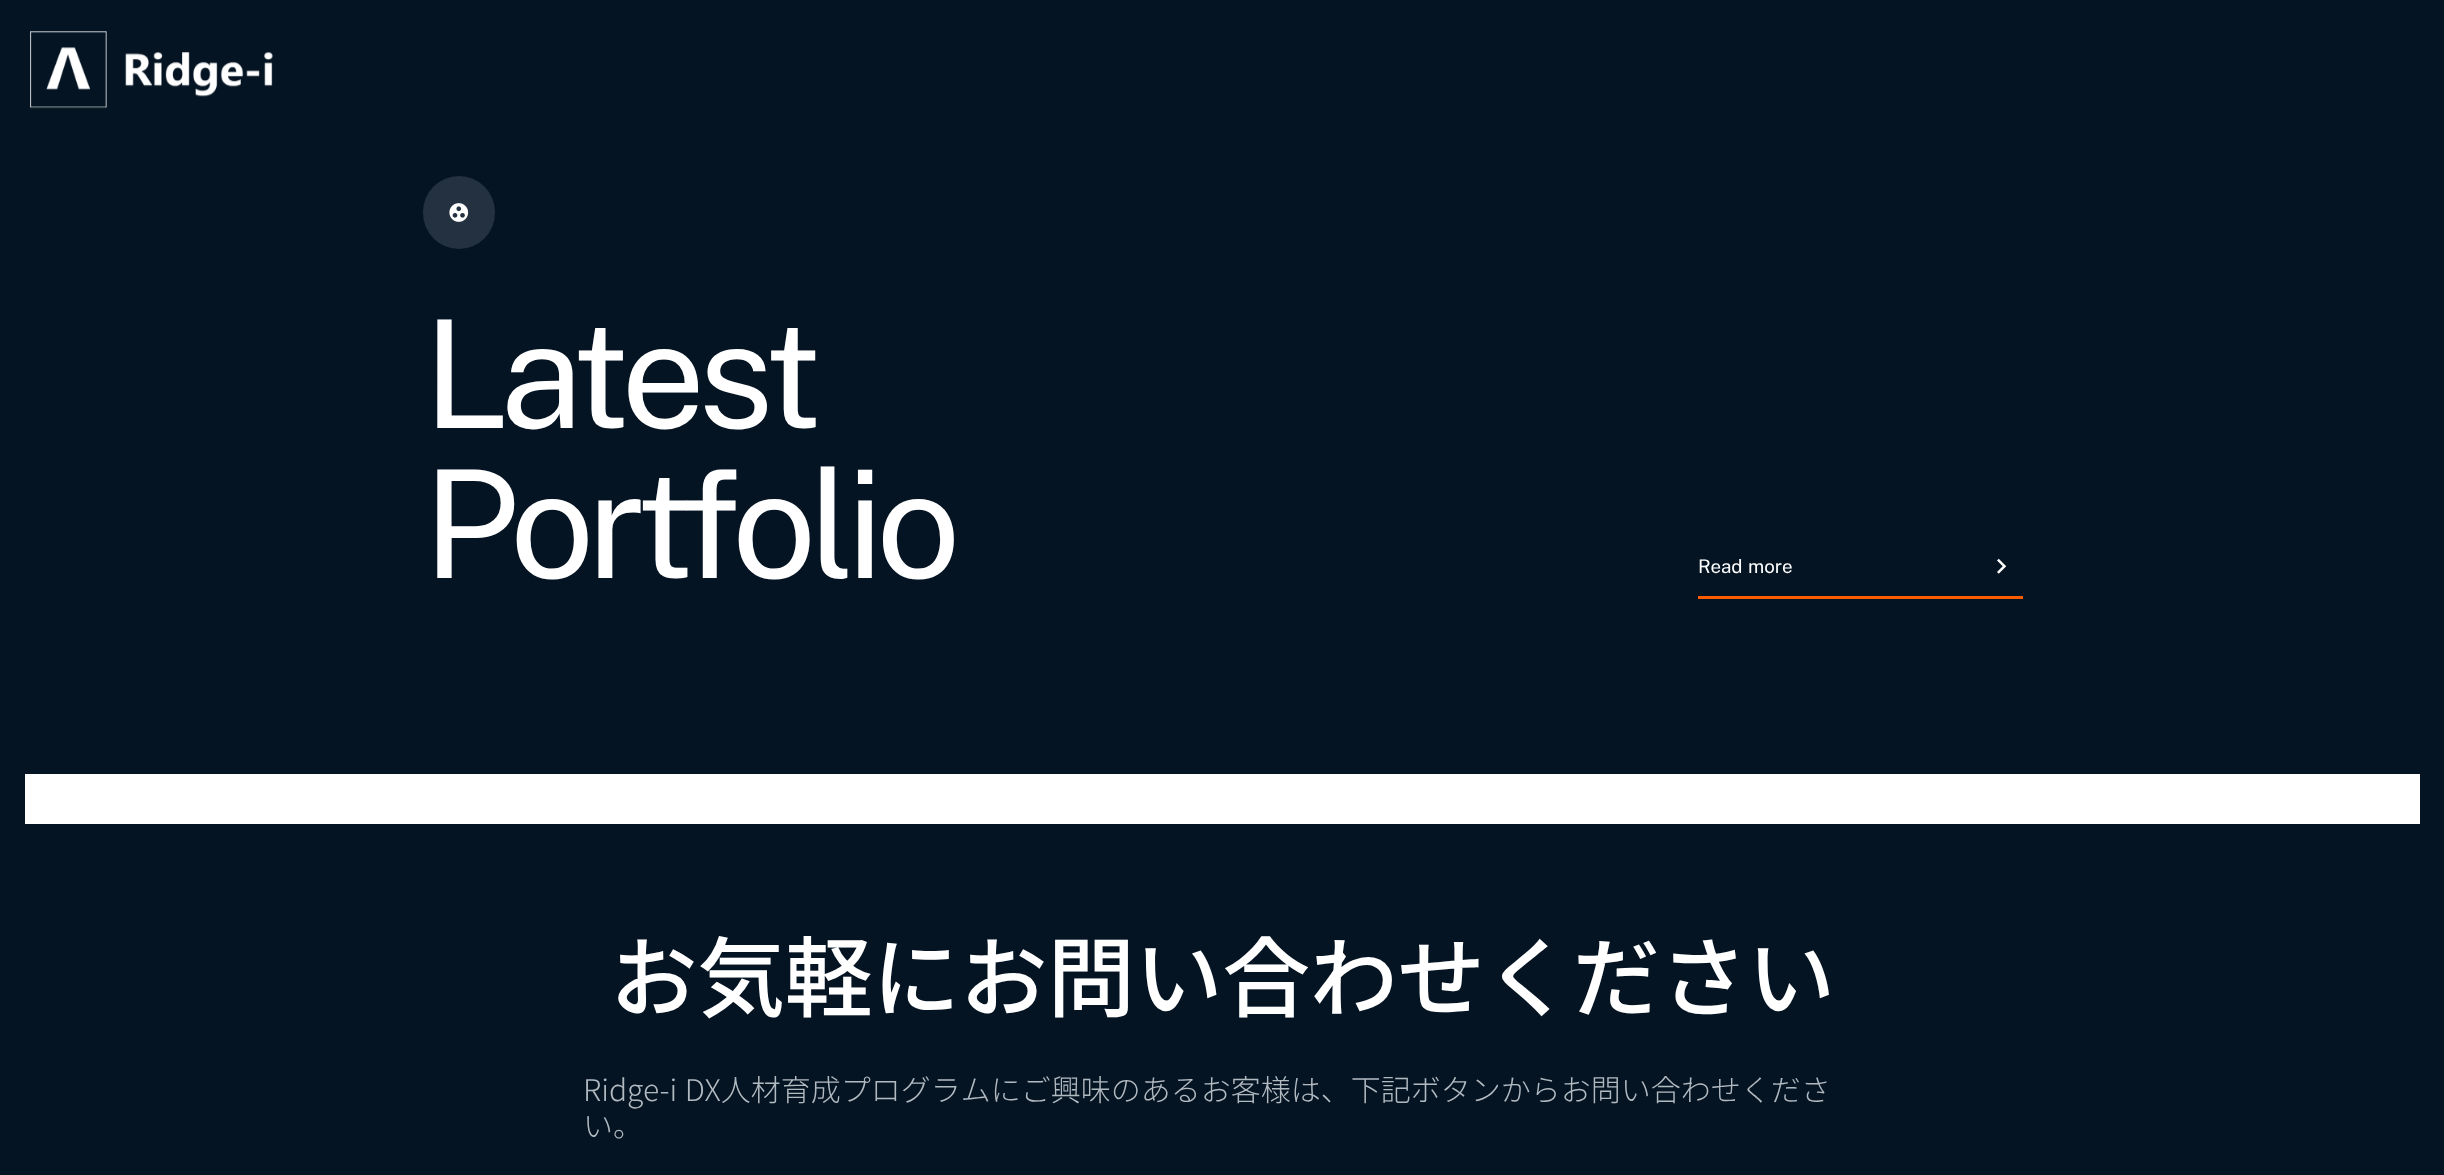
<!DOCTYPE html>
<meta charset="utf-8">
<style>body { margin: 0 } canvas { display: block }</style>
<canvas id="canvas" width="2444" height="1175"></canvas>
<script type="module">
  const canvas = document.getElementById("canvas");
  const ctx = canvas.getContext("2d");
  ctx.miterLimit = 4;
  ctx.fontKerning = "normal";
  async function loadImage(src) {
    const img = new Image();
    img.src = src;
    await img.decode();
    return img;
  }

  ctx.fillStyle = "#051422";
  ctx.fillRect(0, 0, 2444, 1175);
  ctx.drawImage(await loadImage("img1.png"), 30, 31, 243, 78);
  ctx.fillStyle = "#233140";
  ctx.beginPath();
  ctx.roundRect(423, 176, 72, 73, 36);
  ctx.fill();
  ctx.drawImage(await loadImage("img2.png"), 449, 203, 20, 19);
  ctx.letterSpacing = "-7.5px";
  ctx.font = "150px Public Sans";
  ctx.fillStyle = "#ffffff";
  ctx.fillText("Latest", 423, 428);
  ctx.fillText("Portfolio", 423, 578);
  ctx.fillStyle = "#ff5c00";
  ctx.fillRect(1698, 596, 325, 3);
  ctx.letterSpacing = "0px";
  ctx.wordSpacing = "1px";
  ctx.font = "18.75px Public Sans";
  ctx.fillStyle = "#ffffff";
  ctx.fillText("Read more", 1698, 573);
  ctx.drawImage(await loadImage("img3.png"), 1997, 558, 10, 16);
  ctx.fillRect(25, 774, 2395, 50);
  ctx.wordSpacing = "0px";
  ctx.font = "500 87.5px Noto Sans JP";
  ctx.fillText("お気軽にお問い合わせください", 610, 1010);
  ctx.wordSpacing = "1px";
  ctx.font = "300 30px Noto Sans JP";
  ctx.fillStyle = "#b1b9c1";
  ctx.fillText("Ridge-i DX人材育成プログラムにご興味のあるお客様は、下記ボタンからお問い合わせくださ", 583, 1101);
  ctx.wordSpacing = "0px";
  ctx.fillText("い。", 583, 1137);
</script>
